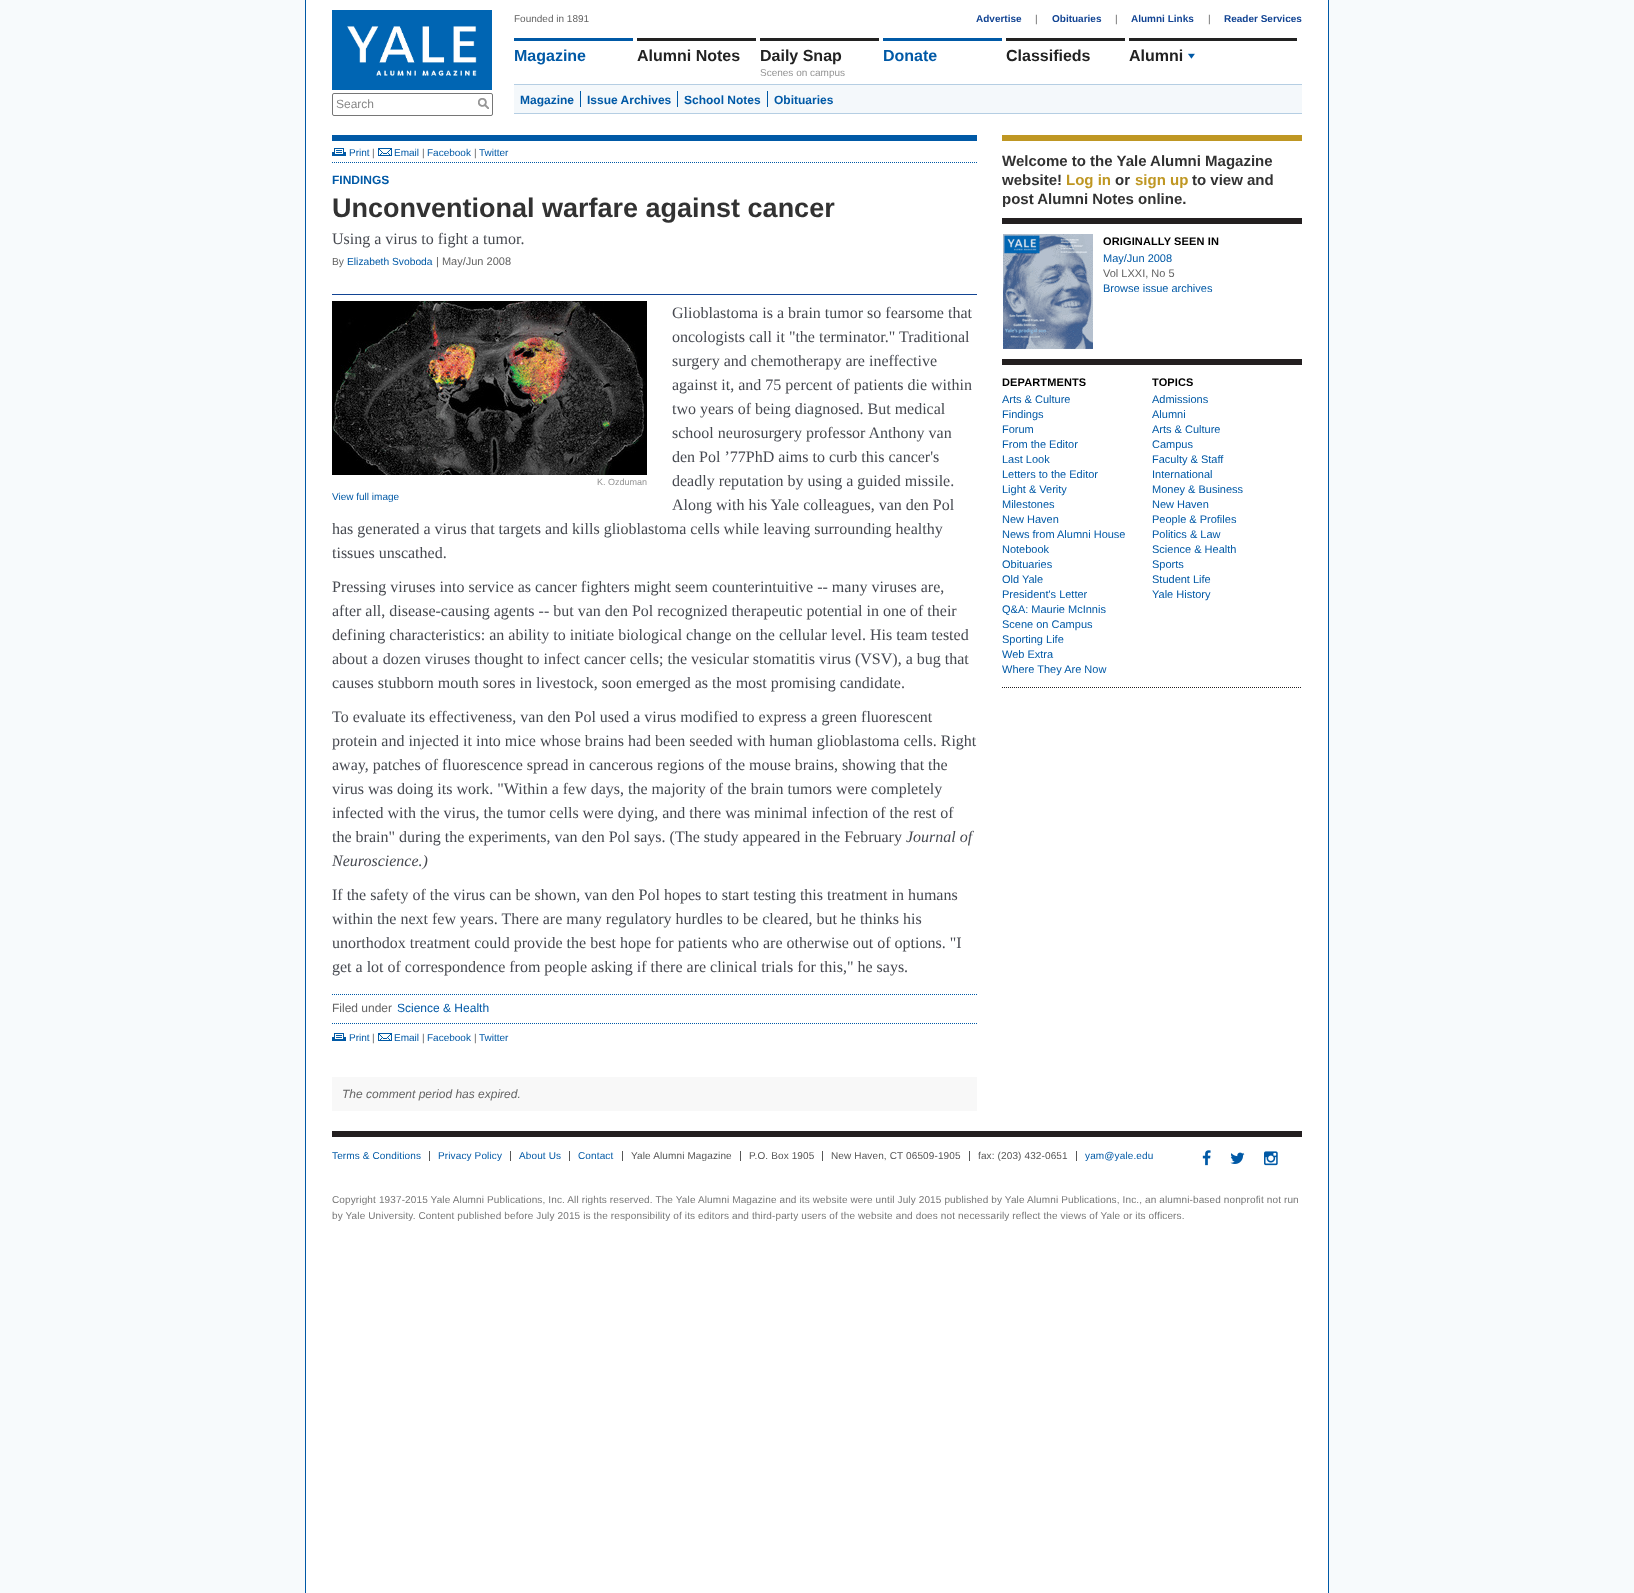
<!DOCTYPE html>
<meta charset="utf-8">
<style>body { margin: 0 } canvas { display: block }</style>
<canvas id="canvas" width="1634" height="1593"></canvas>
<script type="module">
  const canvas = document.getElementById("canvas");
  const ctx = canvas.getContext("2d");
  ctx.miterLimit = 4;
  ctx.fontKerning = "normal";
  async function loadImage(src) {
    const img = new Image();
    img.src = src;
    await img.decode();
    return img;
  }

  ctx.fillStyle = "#f7fafc";
  ctx.fillRect(0, 0, 1634, 1593);
  ctx.fillStyle = "#ffffff";
  ctx.fillRect(306, 0, 1022, 1593);
  ctx.fillStyle = "#0059a6";
  ctx.fillRect(1328, 0, 1, 1593);
  ctx.fillRect(305, 0, 1, 1593);
  ctx.drawImage(await loadImage("img1.png"), 332, 10, 160, 80);
  ctx.beginPath();
  ctx.roundRect(332.5, 93.5, 160, 22, 1.5);
  ctx.strokeStyle = "#767676";
  ctx.stroke();
  ctx.font = "12px Liberation Sans";
  ctx.fillStyle = "#888888";
  ctx.fillText("Search", 336, 108);
  ctx.drawImage(await loadImage("img2.png"), 478, 98, 11, 11);
  ctx.font = "10px Liberation Sans";
  ctx.fillStyle = "#646464";
  ctx.fillText("Founded in 1891", 514, 22);
  ctx.font = "bold 10px Liberation Sans";
  ctx.fillStyle = "#124493";
  ctx.fillText("Advertise", 976, 22);
  ctx.font = "10px Liberation Sans";
  ctx.fillStyle = "#646464";
  ctx.fillText("|", 1035, 22);
  ctx.font = "bold 10px Liberation Sans";
  ctx.fillStyle = "#124493";
  ctx.fillText("Obituaries", 1052, 22);
  ctx.font = "10px Liberation Sans";
  ctx.fillStyle = "#646464";
  ctx.fillText("|", 1115, 22);
  ctx.font = "bold 10px Liberation Sans";
  ctx.fillStyle = "#124493";
  ctx.fillText("Alumni Links", 1131, 22);
  ctx.font = "10px Liberation Sans";
  ctx.fillStyle = "#646464";
  ctx.fillText("|", 1208, 22);
  ctx.font = "bold 10px Liberation Sans";
  ctx.fillStyle = "#124493";
  ctx.fillText("Reader Services", 1224, 22);
  ctx.fillStyle = "#0059a6";
  ctx.fillRect(514, 38, 119, 3);
  ctx.font = "bold 16px Liberation Sans";
  ctx.fillText("Magazine", 514, 61);
  ctx.fillStyle = "#222222";
  ctx.fillRect(637, 38, 119, 3);
  ctx.fillText("Alumni Notes", 637, 61);
  ctx.fillRect(760, 38, 119, 3);
  ctx.fillText("Daily Snap", 760, 61);
  ctx.font = "10px Liberation Sans";
  ctx.fillStyle = "#939393";
  ctx.fillText("Scenes on campus", 760, 76);
  ctx.fillStyle = "#0059a6";
  ctx.fillRect(883, 38, 119, 3);
  ctx.font = "bold 16px Liberation Sans";
  ctx.fillText("Donate", 883, 61);
  ctx.fillStyle = "#222222";
  ctx.fillRect(1006, 38, 119, 3);
  ctx.fillText("Classifieds", 1006, 61);
  ctx.fillRect(1129, 38, 168, 3);
  ctx.fillText("Alumni", 1129, 61);
  ctx.drawImage(await loadImage("img3.png"), 1188, 53, 7, 6);
  ctx.fillStyle = "#f4f8fb";
  ctx.fillRect(514, 85, 788, 28);
  ctx.fillStyle = "#b5cee3";
  ctx.fillRect(514, 84, 788, 1);
  ctx.fillRect(514, 113, 788, 1);
  ctx.fillStyle = "#0059a6";
  ctx.fillRect(580, 91, 1, 16);
  ctx.font = "bold 12px Liberation Sans";
  ctx.fillText("Magazine", 520, 104);
  ctx.fillRect(677, 91, 1, 16);
  ctx.fillText("Issue Archives", 587, 104);
  ctx.fillRect(767, 91, 1, 16);
  ctx.fillText("School Notes", 684, 104);
  ctx.fillText("Obituaries", 774, 104);
  ctx.fillRect(332, 135, 645, 6);
  ctx.beginPath();
  ctx.moveTo(332, 162.5);
  ctx.lineTo(977, 162.5);
  ctx.strokeStyle = "#0059a6";
  ctx.setLineDash([1, 1]);
  ctx.stroke();
  ctx.drawImage(await loadImage("img4.png"), 332, 148, 14, 8);
  ctx.font = "10px Liberation Sans";
  ctx.fillText("Print", 349, 156);
  ctx.fillStyle = "#646464";
  ctx.fillText("|", 372, 156);
  ctx.drawImage(await loadImage("img5.png"), 378, 148, 14, 8);
  ctx.fillStyle = "#0059a6";
  ctx.fillText("Email", 394, 156);
  ctx.fillStyle = "#646464";
  ctx.fillText("|", 422, 156);
  ctx.fillStyle = "#0059a6";
  ctx.fillText("Facebook", 427, 156);
  ctx.fillStyle = "#646464";
  ctx.fillText("|", 474, 156);
  ctx.fillStyle = "#0059a6";
  ctx.fillText("Twitter", 479, 156);
  ctx.font = "bold 12px Liberation Sans";
  ctx.fillText("FINDINGS", 332, 184);
  ctx.font = "bold 27px Liberation Sans";
  ctx.fillStyle = "#323232";
  ctx.fillText("Unconventional warfare against cancer", 332, 217);
  ctx.font = "16px Liberation Serif";
  ctx.fillStyle = "#474a51";
  ctx.fillText("Using a virus to fight a tumor.", 332, 244);
  ctx.font = "10.25px Liberation Sans";
  ctx.fillStyle = "#646464";
  ctx.fillText("By", 332, 265);
  ctx.fillStyle = "#0059a6";
  ctx.fillText("Elizabeth Svoboda", 347, 265);
  ctx.font = "11px Liberation Sans";
  ctx.fillStyle = "#646464";
  ctx.fillText("| May/Jun 2008", 436, 265);
  ctx.fillStyle = "#124493";
  ctx.fillRect(332, 294, 645, 1);
  ctx.font = "16px Liberation Serif";
  ctx.fillStyle = "#474a51";
  ctx.fillText("Glioblastoma is a brain tumor so fearsome that", 672, 318);
  ctx.fillText("oncologists call it \"the terminator.\" Traditional", 672, 342);
  ctx.fillText("surgery and chemotherapy are ineffective", 672, 366);
  ctx.fillText("against it, and 75 percent of patients die within", 672, 390);
  ctx.fillText("two years of being diagnosed. But medical", 672, 414);
  ctx.fillText("school neurosurgery professor Anthony van", 672, 438);
  ctx.fillText("den Pol ’77PhD aims to curb this cancer's", 672, 462);
  ctx.fillText("deadly reputation by using a guided missile.", 672, 486);
  ctx.fillText("Along with his Yale colleagues, van den Pol", 672, 510);
  ctx.fillText("has generated a virus that targets and kills glioblastoma cells while leaving surrounding healthy", 332, 534);
  ctx.fillText("tissues unscathed.", 332, 558);
  ctx.drawImage(await loadImage("img6.png"), 332, 301, 315, 174);
  ctx.font = "9px Liberation Sans";
  ctx.fillStyle = "#939393";
  ctx.fillText("K. Ozduman", 597, 485);
  ctx.font = "10px Liberation Sans";
  ctx.fillStyle = "#0059a6";
  ctx.fillText("View full image", 332, 500);
  ctx.font = "16px Liberation Serif";
  ctx.fillStyle = "#474a51";
  ctx.fillText("Pressing viruses into service as cancer fighters might seem counterintuitive -- many viruses are,", 332, 592);
  ctx.fillText("after all, disease-causing agents -- but van den Pol recognized therapeutic potential in one of their", 332, 616);
  ctx.fillText("defining characteristics: an ability to initiate biological change on the cellular level. His team tested", 332, 640);
  ctx.fillText("about a dozen viruses thought to infect cancer cells; the vesicular stomatitis virus (VSV), a bug that", 332, 664);
  ctx.fillText("causes stubborn mouth sores in livestock, soon emerged as the most promising candidate.", 332, 688);
  ctx.fillText("To evaluate its effectiveness, van den Pol used a virus modified to express a green fluorescent", 332, 722);
  ctx.fillText("protein and injected it into mice whose brains had been seeded with human glioblastoma cells. Right", 332, 746);
  ctx.fillText("away, patches of fluorescence spread in cancerous regions of the mouse brains, showing that the", 332, 770);
  ctx.fillText("virus was doing its work. \"Within a few days, the majority of the brain tumors were completely", 332, 794);
  ctx.fillText("infected with the virus, the tumor cells were dying, and there was minimal infection of the rest of", 332, 818);
  ctx.fillText("the brain\" during the experiments, van den Pol says. (The study appeared in the February", 332, 842);
  ctx.font = "italic 16px Liberation Serif";
  ctx.fillText("Journal of", 906, 842);
  ctx.fillText("Neuroscience.)", 332, 866);
  ctx.font = "16px Liberation Serif";
  ctx.fillText("If the safety of the virus can be shown, van den Pol hopes to start testing this treatment in humans", 332, 900);
  ctx.fillText("within the next few years. There are many regulatory hurdles to be cleared, but he thinks his", 332, 924);
  ctx.fillText("unorthodox treatment could provide the best hope for patients who are otherwise out of options. \"I", 332, 948);
  ctx.fillText("get a lot of correspondence from people asking if there are clinical trials for this,\" he says.", 332, 972);
  ctx.beginPath();
  ctx.moveTo(332, 994.5);
  ctx.lineTo(977, 994.5);
  ctx.stroke();
  ctx.font = "12px Liberation Sans";
  ctx.fillStyle = "#646464";
  ctx.fillText("Filed under", 332, 1012);
  ctx.fillStyle = "#0059a6";
  ctx.fillText("Science & Health", 397, 1012);
  ctx.beginPath();
  ctx.moveTo(332, 1023.5);
  ctx.lineTo(977, 1023.5);
  ctx.stroke();
  ctx.drawImage(await loadImage("img4.png"), 332, 1033, 14, 8);
  ctx.font = "10px Liberation Sans";
  ctx.fillText("Print", 349, 1041);
  ctx.fillStyle = "#646464";
  ctx.fillText("|", 372, 1041);
  ctx.drawImage(await loadImage("img5.png"), 378, 1033, 14, 8);
  ctx.fillStyle = "#0059a6";
  ctx.fillText("Email", 394, 1041);
  ctx.fillStyle = "#646464";
  ctx.fillText("|", 422, 1041);
  ctx.fillStyle = "#0059a6";
  ctx.fillText("Facebook", 427, 1041);
  ctx.fillStyle = "#646464";
  ctx.fillText("|", 474, 1041);
  ctx.fillStyle = "#0059a6";
  ctx.fillText("Twitter", 479, 1041);
  ctx.fillStyle = "#f8f8f8";
  ctx.fillRect(332, 1077, 645, 34);
  ctx.font = "italic 12px Liberation Sans";
  ctx.fillStyle = "#646464";
  ctx.fillText("The comment period has expired.", 342, 1098);
  ctx.fillStyle = "#bf9723";
  ctx.fillRect(1002, 135, 300, 6);
  ctx.font = "bold 15px Liberation Sans";
  ctx.fillStyle = "#323232";
  ctx.fillText("Welcome to the Yale Alumni Magazine", 1002, 166);
  ctx.fillText("website!", 1002, 185);
  ctx.fillStyle = "#bf9723";
  ctx.fillText("Log in", 1066, 185);
  ctx.fillStyle = "#323232";
  ctx.fillText("or", 1115, 185);
  ctx.fillStyle = "#bf9723";
  ctx.fillText("sign up", 1135, 185);
  ctx.fillStyle = "#323232";
  ctx.fillText("to view and", 1192, 185);
  ctx.fillText("post Alumni Notes online.", 1002, 204);
  ctx.fillStyle = "#231f20";
  ctx.fillRect(1002, 218, 300, 6);
  ctx.drawImage(await loadImage("img7.png"), 1003, 234, 90, 115);
  ctx.letterSpacing = "0.13px";
  ctx.font = "bold 11px Liberation Sans";
  ctx.fillStyle = "#000000";
  ctx.fillText("ORIGINALLY SEEN IN", 1103, 245);
  ctx.letterSpacing = "0px";
  ctx.font = "11px Liberation Sans";
  ctx.fillStyle = "#0059a6";
  ctx.fillText("May/Jun 2008", 1103, 262);
  ctx.fillStyle = "#646464";
  ctx.fillText("Vol LXXI, No 5", 1103, 277);
  ctx.fillStyle = "#0059a6";
  ctx.fillText("Browse issue archives", 1103, 292);
  ctx.fillStyle = "#231f20";
  ctx.fillRect(1002, 359, 300, 6);
  ctx.letterSpacing = "0.13px";
  ctx.font = "bold 11px Liberation Sans";
  ctx.fillStyle = "#000000";
  ctx.fillText("DEPARTMENTS", 1002, 386);
  ctx.letterSpacing = "0px";
  ctx.font = "11px Liberation Sans";
  ctx.fillStyle = "#0059a6";
  ctx.fillText("Arts & Culture", 1002, 403);
  ctx.fillText("Findings", 1002, 418);
  ctx.fillText("Forum", 1002, 433);
  ctx.fillText("From the Editor", 1002, 448);
  ctx.fillText("Last Look", 1002, 463);
  ctx.fillText("Letters to the Editor", 1002, 478);
  ctx.fillText("Light & Verity", 1002, 493);
  ctx.fillText("Milestones", 1002, 508);
  ctx.fillText("New Haven", 1002, 523);
  ctx.fillText("News from Alumni House", 1002, 538);
  ctx.fillText("Notebook", 1002, 553);
  ctx.fillText("Obituaries", 1002, 568);
  ctx.fillText("Old Yale", 1002, 583);
  ctx.fillText("President's Letter", 1002, 598);
  ctx.fillText("Q&A: Maurie McInnis", 1002, 613);
  ctx.fillText("Scene on Campus", 1002, 628);
  ctx.fillText("Sporting Life", 1002, 643);
  ctx.fillText("Web Extra", 1002, 658);
  ctx.fillText("Where They Are Now", 1002, 673);
  ctx.letterSpacing = "0.13px";
  ctx.font = "bold 11px Liberation Sans";
  ctx.fillStyle = "#000000";
  ctx.fillText("TOPICS", 1152, 386);
  ctx.letterSpacing = "0px";
  ctx.font = "11px Liberation Sans";
  ctx.fillStyle = "#0059a6";
  ctx.fillText("Admissions", 1152, 403);
  ctx.fillText("Alumni", 1152, 418);
  ctx.fillText("Arts & Culture", 1152, 433);
  ctx.fillText("Campus", 1152, 448);
  ctx.fillText("Faculty & Staff", 1152, 463);
  ctx.fillText("International", 1152, 478);
  ctx.fillText("Money & Business", 1152, 493);
  ctx.fillText("New Haven", 1152, 508);
  ctx.fillText("People & Profiles", 1152, 523);
  ctx.fillText("Politics & Law", 1152, 538);
  ctx.fillText("Science & Health", 1152, 553);
  ctx.fillText("Sports", 1152, 568);
  ctx.fillText("Student Life", 1152, 583);
  ctx.fillText("Yale History", 1152, 598);
  ctx.beginPath();
  ctx.moveTo(1002, 687.5);
  ctx.lineTo(1302, 687.5);
  ctx.strokeStyle = "#231f20";
  ctx.stroke();
  ctx.fillStyle = "#231f20";
  ctx.fillRect(332, 1131, 970, 6);
  ctx.fillStyle = "#555555";
  ctx.fillRect(429, 1151, 1, 10);
  ctx.letterSpacing = "0.13px";
  ctx.font = "10px Liberation Sans";
  ctx.fillStyle = "#0059a6";
  ctx.fillText("Terms & Conditions", 332, 1159);
  ctx.fillStyle = "#555555";
  ctx.fillRect(510, 1151, 1, 10);
  ctx.fillStyle = "#0059a6";
  ctx.fillText("Privacy Policy", 438, 1159);
  ctx.fillStyle = "#555555";
  ctx.fillRect(569, 1151, 1, 10);
  ctx.fillStyle = "#0059a6";
  ctx.fillText("About Us", 519, 1159);
  ctx.fillStyle = "#555555";
  ctx.fillRect(622, 1151, 1, 10);
  ctx.fillStyle = "#0059a6";
  ctx.fillText("Contact", 578, 1159);
  ctx.fillStyle = "#555555";
  ctx.fillRect(740, 1151, 1, 10);
  ctx.fillText("Yale Alumni Magazine", 631, 1159);
  ctx.fillRect(822, 1151, 1, 10);
  ctx.fillText("P.O. Box 1905", 749, 1159);
  ctx.fillRect(969, 1151, 1, 10);
  ctx.fillText("New Haven, CT 06509-1905", 831, 1159);
  ctx.fillRect(1076, 1151, 1, 10);
  ctx.fillText("fax: (203) 432-0651", 978, 1159);
  ctx.fillStyle = "#0059a6";
  ctx.fillText("yam@yale.edu", 1085, 1159);
  ctx.drawImage(await loadImage("img8.png"), 1202, 1150, 9, 16);
  ctx.drawImage(await loadImage("img9.png"), 1230, 1152, 15, 12);
  ctx.drawImage(await loadImage("img10.png"), 1264, 1151, 14, 15);
  ctx.fillStyle = "#777777";
  ctx.fillText("Copyright 1937-2015 Yale Alumni Publications, Inc. All rights reserved. The Yale Alumni Magazine and its website were until July 2015 published by Yale Alumni Publications, Inc., an alumni-based nonprofit not run", 332, 1203);
  ctx.fillText("by Yale University. Content published before July 2015 is the responsibility of its editors and third-party users of the website and does not necessarily reflect the views of Yale or its officers.", 332, 1219);
</script>
